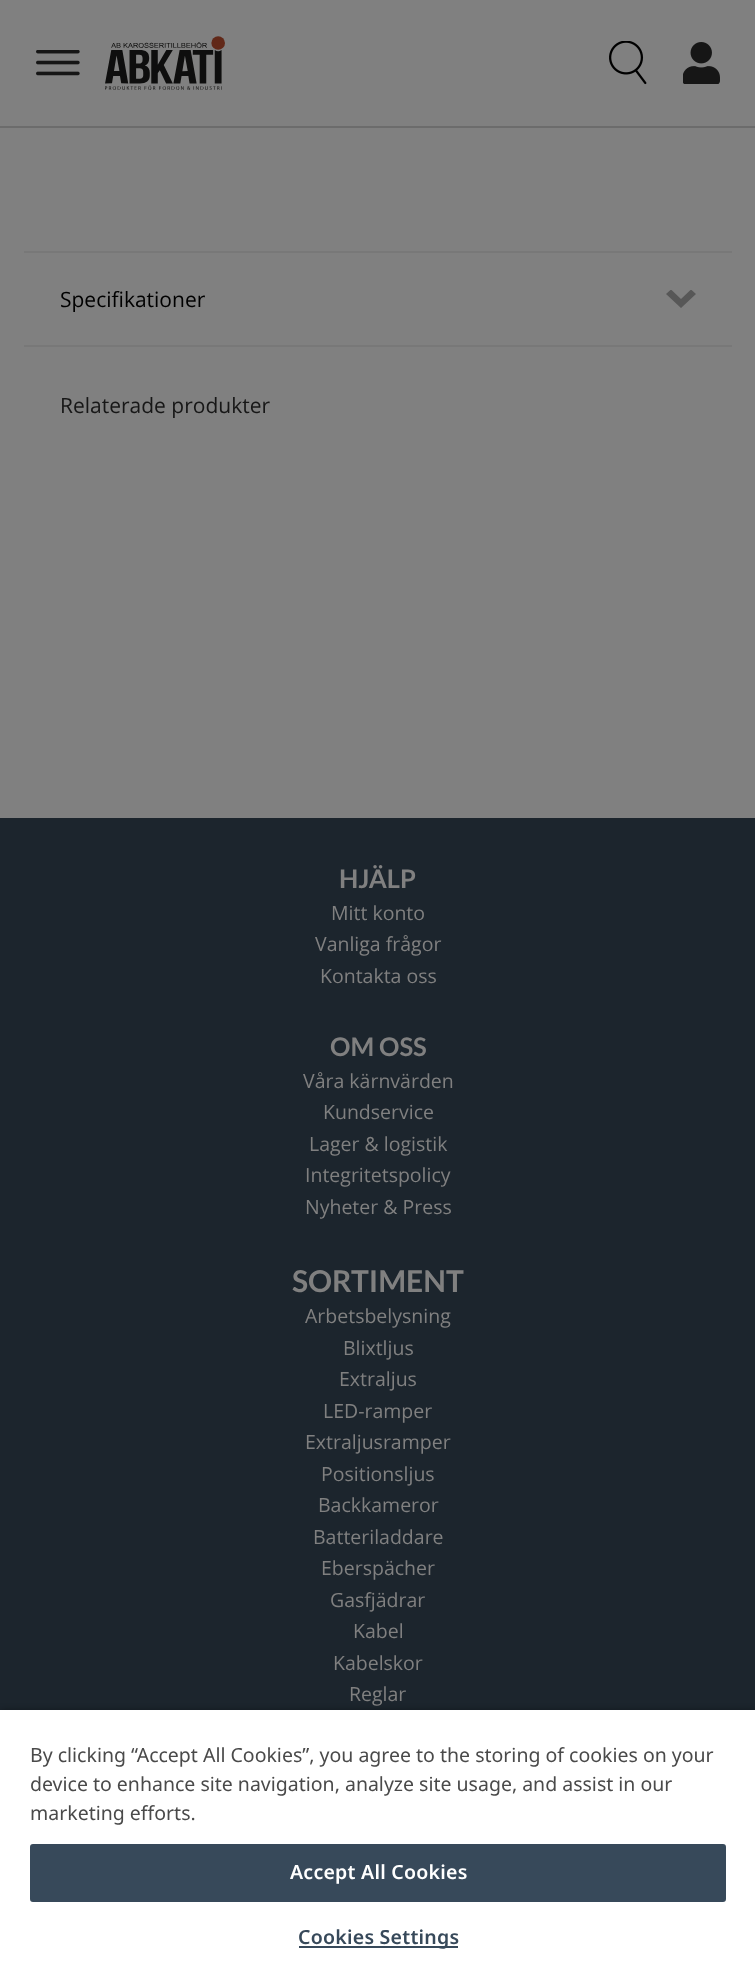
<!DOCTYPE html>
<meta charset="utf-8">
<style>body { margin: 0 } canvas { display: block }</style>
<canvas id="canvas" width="755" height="1972"></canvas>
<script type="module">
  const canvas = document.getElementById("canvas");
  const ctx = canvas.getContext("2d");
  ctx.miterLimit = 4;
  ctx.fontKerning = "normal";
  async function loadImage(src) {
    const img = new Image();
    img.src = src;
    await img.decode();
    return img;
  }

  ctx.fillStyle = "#808080";
  ctx.fillRect(0, 0, 755, 1972);
  ctx.fillStyle = "#6c6c6c";
  ctx.fillRect(0, 126, 755, 2);
  ctx.drawImage(await loadImage("img1.png"), 36, 50, 44, 26);
  ctx.drawImage(await loadImage("img2.png"), 105, 36, 120, 54);
  ctx.drawImage(await loadImage("img3.png"), 609, 41, 38, 44);
  ctx.drawImage(await loadImage("img4.png"), 683, 42, 37, 42);
  ctx.fillStyle = "#787878";
  ctx.fillRect(24, 251, 708, 2);
  ctx.font = "21px Open Sans";
  ctx.fillStyle = "#000000";
  ctx.fillText("Specifikationer", 60, 307);
  ctx.save();
  ctx.beginPath();
  ctx.rect(666, 290, 30, 19);
  ctx.clip();
  ctx.fillStyle = "#575757";
  ctx.beginPath();
  ctx.moveTo(681, 308);
  ctx.lineTo(666, 294);
  ctx.lineTo(671, 289.5);
  ctx.lineTo(681, 299);
  ctx.lineTo(691, 289.5);
  ctx.lineTo(696, 294);
  ctx.closePath();
  ctx.fill();
  ctx.restore();
  ctx.fillStyle = "#787878";
  ctx.fillRect(24, 345, 708, 2);
  ctx.fillStyle = "#171717";
  ctx.fillText("Relaterade produkter", 60, 413);
  ctx.fillStyle = "#1c252d";
  ctx.fillRect(0, 818, 755, 892);
  ctx.font = "bold 25.5px Lato";
  ctx.fillStyle = "#808080";
  ctx.fillText("HJÄLP", 339, 888);
  ctx.font = "19.5px Open Sans";
  ctx.fillText("Mitt konto", 331, 920);
  ctx.fillText("Vanliga frågor", 315, 951);
  ctx.fillText("Kontakta oss", 320, 983);
  ctx.font = "bold 25.5px Lato";
  ctx.fillText("OM OSS", 330, 1056);
  ctx.font = "19.5px Open Sans";
  ctx.fillText("Våra kärnvärden", 303, 1088);
  ctx.fillText("Kundservice", 323, 1119);
  ctx.fillText("Lager & logistik", 309, 1151);
  ctx.fillText("Integritetspolicy", 305, 1182);
  ctx.fillText("Nyheter & Press", 305, 1214);
  ctx.font = "bold 30px Lato";
  ctx.fillText("SORTIMENT", 292, 1292);
  ctx.font = "19.5px Open Sans";
  ctx.fillText("Arbetsbelysning", 305, 1323);
  ctx.fillText("Blixtljus", 343, 1355);
  ctx.fillText("Extraljus", 339, 1386);
  ctx.fillText("LED-ramper", 323, 1418);
  ctx.fillText("Extraljusramper", 305, 1449);
  ctx.fillText("Positionsljus", 321, 1481);
  ctx.fillText("Backkameror", 318, 1512);
  ctx.fillText("Batteriladdare", 313, 1544);
  ctx.fillText("Eberspächer", 321, 1575);
  ctx.fillText("Gasfjädrar", 330, 1607);
  ctx.fillText("Kabel", 353, 1638);
  ctx.fillText("Kabelskor", 333, 1670);
  ctx.fillText("Reglar", 349, 1701);
  ctx.fillStyle = "rgba(0, 0, 0, 0.35)";
  ctx.filter = "blur(3px)";
  ctx.beginPath();
  ctx.rect(0, 1710, 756, 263);
  ctx.fill();
  ctx.filter = "none";
  ctx.fillStyle = "#ffffff";
  ctx.fillRect(0, 1710, 755, 262);
  ctx.font = "19.5px Noto Sans";
  ctx.fillStyle = "#4a4a4a";
  ctx.fillText("By clicking “Accept All Cookies”, you agree to the storing of cookies on your", 30, 1762);
  ctx.fillText("device to enhance site navigation, analyze site usage, and assist in our", 30, 1791);
  ctx.fillText("marketing efforts.", 30, 1820);
  ctx.fillStyle = "#37495a";
  ctx.beginPath();
  ctx.roundRect(31, 1845, 694, 56, 2);
  ctx.fill();
  ctx.strokeStyle = "#37495a";
  ctx.lineWidth = 2;
  ctx.stroke();
  ctx.letterSpacing = "0.25px";
  ctx.font = "600 19.5px Noto Sans";
  ctx.fillStyle = "#ffffff";
  ctx.fillText("Accept All Cookies", 290, 1879);
  ctx.fillStyle = "#37495a";
  ctx.fillRect(299, 1946, 159, 2);
  ctx.fillText("Cookies Settings", 298, 1944);
</script>
